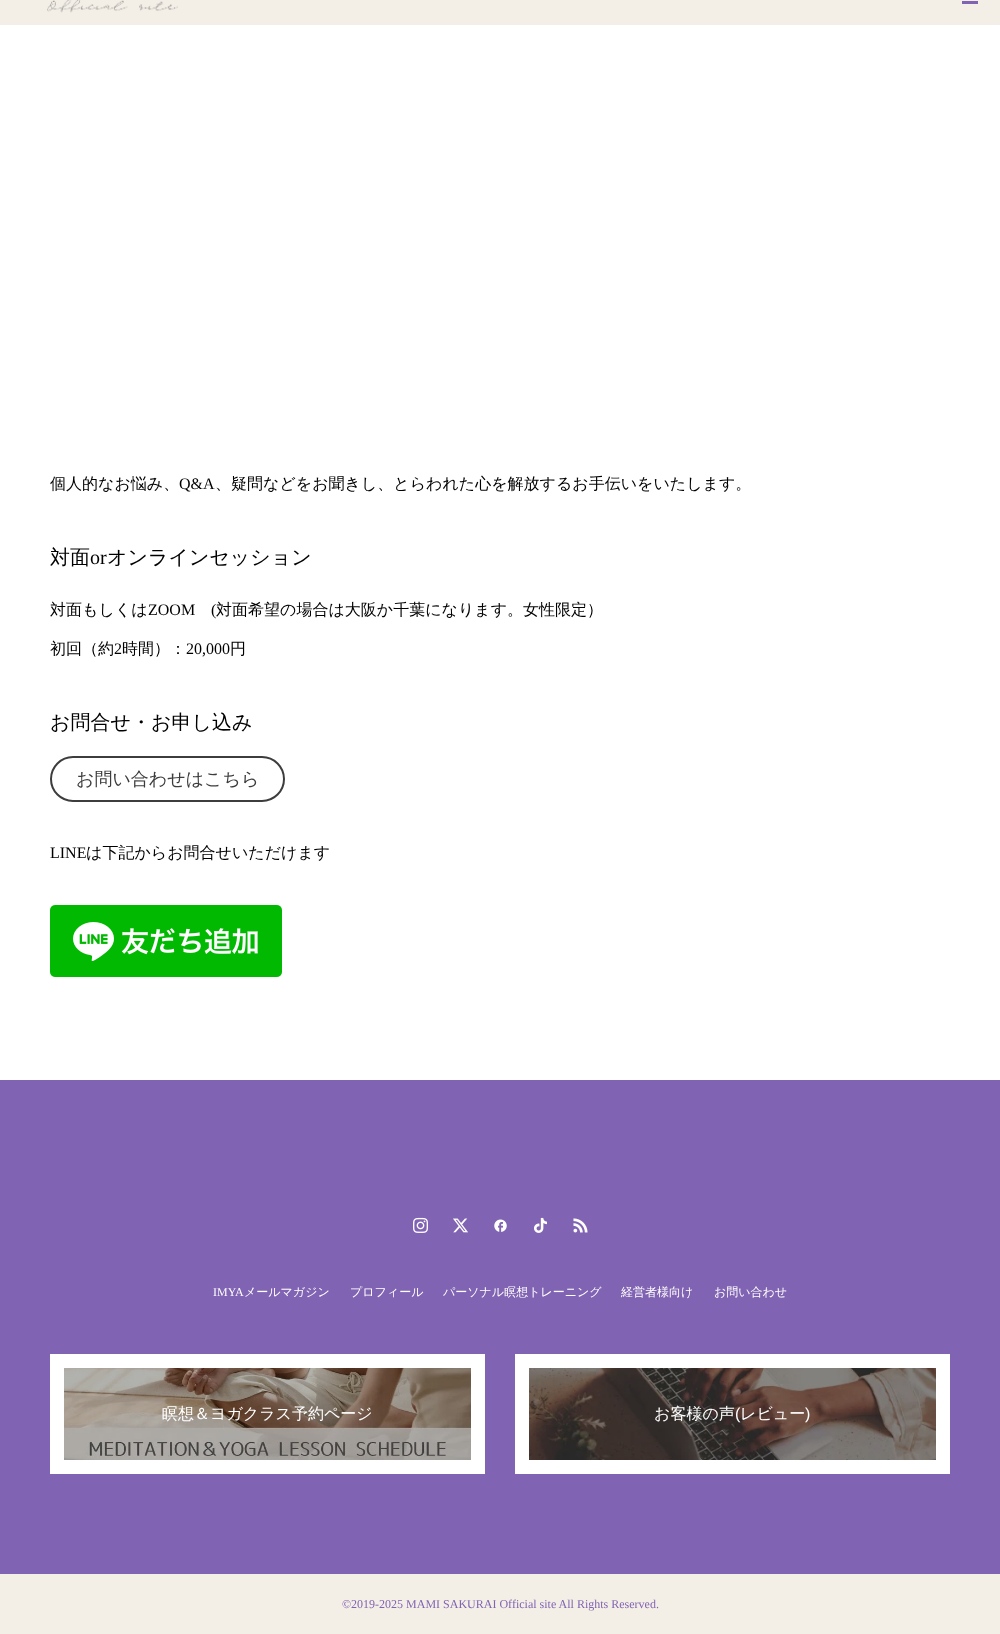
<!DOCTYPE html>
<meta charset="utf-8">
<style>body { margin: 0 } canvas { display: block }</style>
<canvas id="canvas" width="1000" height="1634"></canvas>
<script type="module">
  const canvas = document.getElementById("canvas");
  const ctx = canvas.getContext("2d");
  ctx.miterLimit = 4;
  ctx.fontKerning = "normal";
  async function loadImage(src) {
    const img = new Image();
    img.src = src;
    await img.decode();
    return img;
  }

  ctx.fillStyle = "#ffffff";
  ctx.fillRect(0, 0, 1000, 1634);
  ctx.fillStyle = "#f4efe6";
  ctx.fillRect(0, 0, 1000, 25);
  ctx.drawImage(await loadImage("img1.png"), 47, 0, 131, 13);
  ctx.fillStyle = "#8063b2";
  ctx.fillRect(962, 1, 16, 3);
  ctx.font = "500 16px WenQuanYi Zen Hei";
  ctx.fillStyle = "#000000";
  ctx.fillText("個人的なお悩み、", 50, 489);
  ctx.font = "16px Liberation Serif";
  ctx.fillText("Q&A", 179, 489);
  ctx.font = "500 16px WenQuanYi Zen Hei";
  ctx.fillText("、疑問などをお聞きし、とらわれた心を解放するお手伝いをいたします。", 215, 489);
  ctx.font = "500 20px WenQuanYi Zen Hei";
  ctx.fillText("対面", 50, 564);
  ctx.font = "20px Liberation Serif";
  ctx.fillText("or", 90, 564);
  ctx.font = "500 20px WenQuanYi Zen Hei";
  ctx.fillText("オンラインセッション", 107, 564);
  ctx.font = "500 16px WenQuanYi Zen Hei";
  ctx.fillText("対面もしくは", 50, 615);
  ctx.font = "16px Liberation Serif";
  ctx.fillText("ZOOM", 148, 615);
  ctx.fillText("(", 211, 615);
  ctx.font = "500 16px WenQuanYi Zen Hei";
  ctx.fillText("対面希望の場合は大阪か千葉になります。女性限定）", 216, 615);
  ctx.fillText("初回（約", 50, 654);
  ctx.font = "16px Liberation Serif";
  ctx.fillText("2", 114, 654);
  ctx.font = "500 16px WenQuanYi Zen Hei";
  ctx.fillText("時間）：", 122, 654);
  ctx.font = "16px Liberation Serif";
  ctx.fillText("20,000", 186, 654);
  ctx.font = "500 16px WenQuanYi Zen Hei";
  ctx.fillText("円", 230, 654);
  ctx.font = "500 20px WenQuanYi Zen Hei";
  ctx.fillText("お問合せ・お申し込み", 50, 729);
  ctx.beginPath();
  ctx.roundRect(51, 757, 233, 44, 22);
  ctx.strokeStyle = "#3d3d3d";
  ctx.lineWidth = 2;
  ctx.stroke();
  ctx.font = "500 18px WenQuanYi Zen Hei";
  ctx.fillStyle = "#3d3d3d";
  ctx.fillText("お問い合わせはこちら", 76, 785);
  ctx.font = "16px Liberation Serif";
  ctx.fillStyle = "#000000";
  ctx.fillText("LINE", 50, 858);
  ctx.font = "500 16px WenQuanYi Zen Hei";
  ctx.fillText("は下記からお問合せいただけます", 86, 858);
  ctx.drawImage(await loadImage("img2.png"), 50, 905, 232, 72);
  ctx.fillStyle = "#8063b2";
  ctx.fillRect(0, 1080, 1000, 494);
  ctx.drawImage(await loadImage("img3.png"), 413, 1217, 15, 16);
  ctx.drawImage(await loadImage("img4.png"), 453, 1218, 15, 15);
  ctx.drawImage(await loadImage("img5.png"), 494, 1219, 13, 13);
  ctx.drawImage(await loadImage("img6.png"), 534, 1217, 13, 16);
  ctx.drawImage(await loadImage("img7.png"), 573, 1218, 15, 15);
  ctx.font = "12px Liberation Serif";
  ctx.fillStyle = "#ffffff";
  ctx.fillText("IMYA", 213, 1296);
  ctx.font = "500 12px WenQuanYi Zen Hei";
  ctx.fillText("メールマガジン", 244, 1296);
  ctx.fillText("プロフィール", 350, 1296);
  ctx.fillText("パーソナル瞑想トレーニング", 443, 1296);
  ctx.fillText("経営者様向け", 621, 1296);
  ctx.fillText("お問い合わせ", 714, 1296);
  ctx.strokeStyle = "#ffffff";
  ctx.lineWidth = 14;
  ctx.strokeRect(57, 1361, 421, 106);
  ctx.drawImage(await loadImage("img8.png"), 64, 1368, 407, 92);
  ctx.font = "500 16px WenQuanYi Zen Hei";
  ctx.fillText("瞑想＆ヨガクラス予約ページ", 162, 1419);
  ctx.strokeRect(522, 1361, 421, 106);
  ctx.drawImage(await loadImage("img9.png"), 529, 1368, 407, 92);
  ctx.fillText("お客様の声", 654, 1419);
  ctx.font = "16px Liberation Sans";
  ctx.fillText("(", 735, 1419);
  ctx.font = "500 16px WenQuanYi Zen Hei";
  ctx.fillText("レビュー", 740, 1419);
  ctx.font = "16px Liberation Sans";
  ctx.fillText(")", 805, 1419);
  ctx.fillStyle = "#f4efe6";
  ctx.fillRect(0, 1574, 1000, 60);
  ctx.font = "12px Liberation Serif";
  ctx.fillStyle = "#8063b2";
  ctx.fillText("©2019-2025 MAMI SAKURAI Official site All Rights Reserved.", 342, 1608);
</script>
